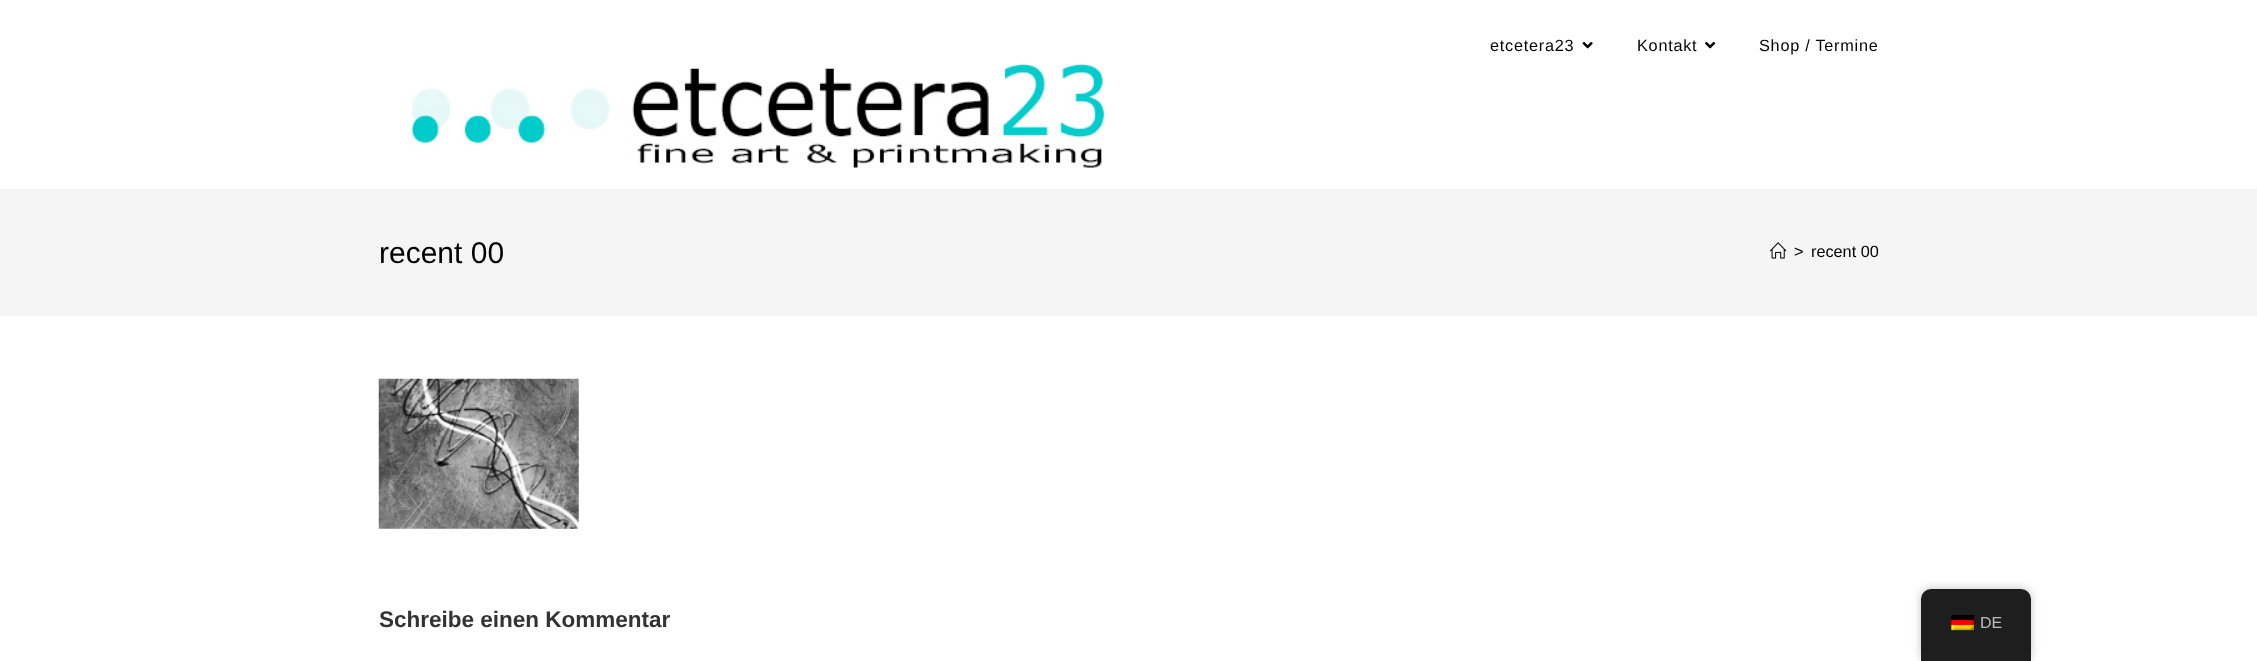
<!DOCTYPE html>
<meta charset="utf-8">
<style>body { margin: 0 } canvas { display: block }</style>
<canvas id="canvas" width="2257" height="661"></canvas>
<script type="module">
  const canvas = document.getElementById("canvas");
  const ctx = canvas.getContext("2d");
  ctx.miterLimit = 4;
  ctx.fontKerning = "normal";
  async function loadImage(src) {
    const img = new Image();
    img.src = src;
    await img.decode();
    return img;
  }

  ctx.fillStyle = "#ffffff";
  ctx.fillRect(0, 0, 2257, 661);
  ctx.letterSpacing = "0.75px";
  ctx.font = "16.25px Liberation Sans";
  ctx.fillStyle = "#000000";
  ctx.fillText("etcetera23", 1490, 51);
  ctx.drawImage(await loadImage("img1.png"), 1582, 41, 11, 8);
  ctx.fillText("Kontakt", 1637, 51);
  ctx.drawImage(await loadImage("img2.png"), 1705, 41, 11, 8);
  ctx.fillText("Shop / Termine", 1759, 51);
  ctx.drawImage(await loadImage("img3.png"), 411, 63, 693, 105);
  ctx.fillStyle = "#f5f5f5";
  ctx.fillRect(0, 189, 2257, 127);
  ctx.letterSpacing = "0px";
  ctx.font = "30px Liberation Sans";
  ctx.fillStyle = "#000000";
  ctx.fillText("recent 00", 379, 263);
  ctx.drawImage(await loadImage("img4.png"), 1770, 242, 17, 17);
  ctx.font = "16.25px Liberation Sans";
  ctx.fillText(">", 1794, 257);
  ctx.fillText("recent 00", 1811, 257);
  ctx.drawImage(await loadImage("img5.png"), 378, 378, 201, 151);
  ctx.font = "bold 22.5px Liberation Sans";
  ctx.fillStyle = "#333333";
  ctx.fillText("Schreibe einen Kommentar", 379, 627);
  ctx.fillStyle = "rgba(0, 0, 0, 0.25)";
  ctx.filter = "blur(5px)";
  ctx.beginPath();
  ctx.roundRect(1921, 589, 110, 72, 10);
  ctx.fill();
  ctx.filter = "none";
  ctx.fillStyle = "#1e1e1e";
  ctx.beginPath();
  ctx.roundRect(1921, 589, 110, 72, [10, 10, 0, 0]);
  ctx.fill();
  ctx.drawImage(await loadImage("img6.png"), 1951, 615, 23, 16);
  ctx.font = "16px Liberation Sans";
  ctx.fillStyle = "#bdbdbd";
  ctx.fillText("DE", 1980, 628);
</script>
